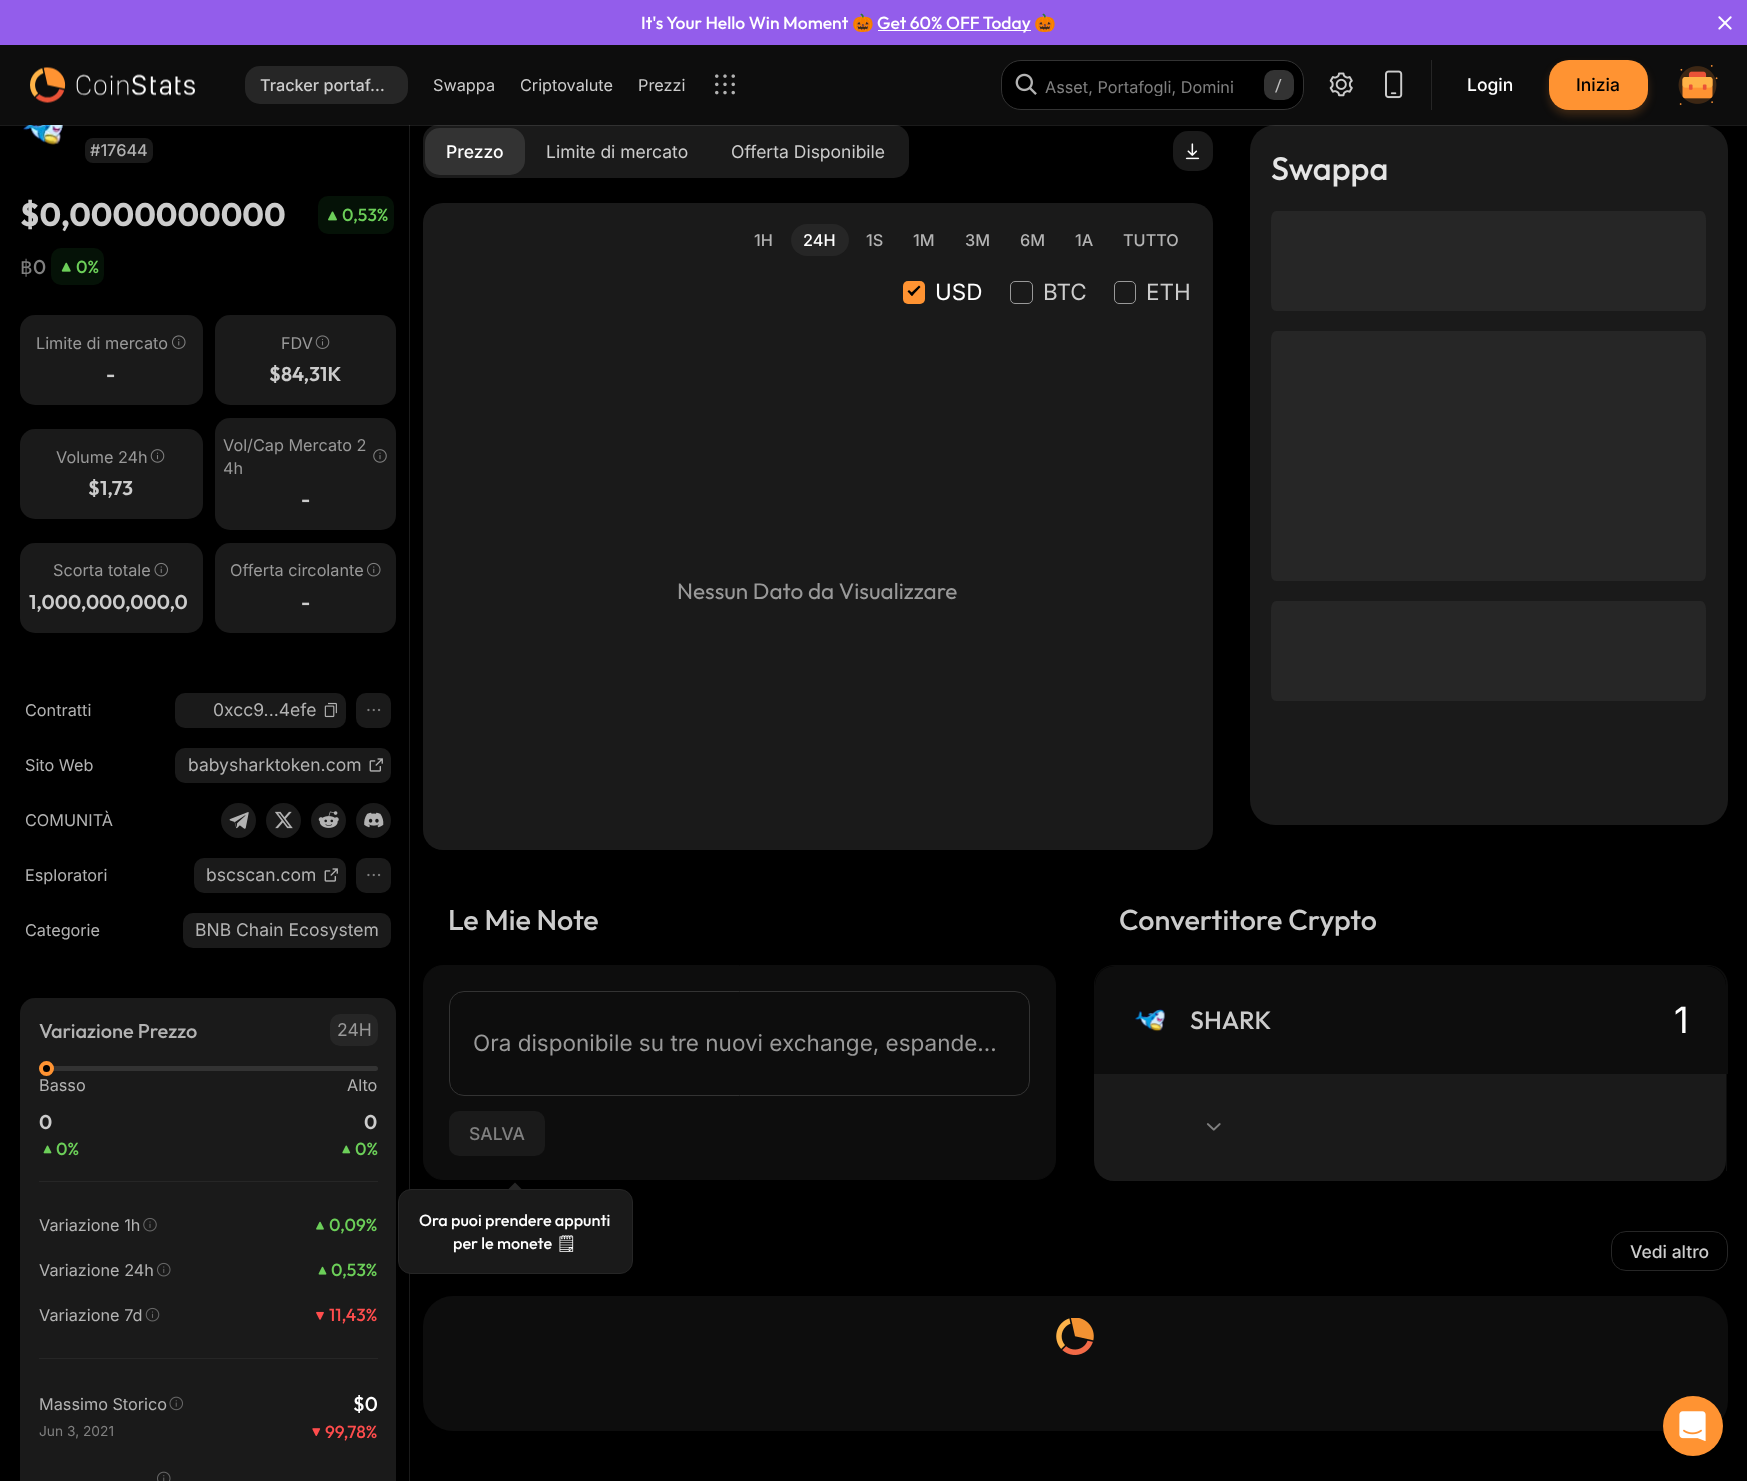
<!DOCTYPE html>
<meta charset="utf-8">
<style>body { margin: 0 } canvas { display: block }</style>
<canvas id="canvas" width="1747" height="1481"></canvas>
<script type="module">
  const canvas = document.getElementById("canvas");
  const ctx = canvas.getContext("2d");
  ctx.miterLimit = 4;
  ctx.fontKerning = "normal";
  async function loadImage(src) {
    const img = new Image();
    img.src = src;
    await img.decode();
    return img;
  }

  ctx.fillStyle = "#000000";
  ctx.fillRect(0, 0, 1747, 1481);
  ctx.fillStyle = "#935deb";
  ctx.fillRect(0, 0, 1747, 45);
  ctx.font = "500 17.5px Outfit";
  ctx.fillStyle = "#ffffff";
  ctx.fillText("It's Your Hello Win Moment", 641, 29);
  ctx.font = "17.5px Noto Color Emoji";
  ctx.fillText("🎃", 852, 29);
  ctx.fillRect(878, 30, 153, 1);
  ctx.font = "500 17.5px Outfit";
  ctx.fillText("Get 60% OFF Today", 877, 29);
  ctx.font = "17.5px Noto Color Emoji";
  ctx.fillText("🎃", 1034, 29);
  ctx.drawImage(await loadImage("img1.png"), 1718, 16, 14, 14);
  ctx.fillStyle = "#1a1a1a";
  ctx.fillRect(409, 125, 1, 1356);
  ctx.drawImage(await loadImage("img8.png"), 23, 125, 40, 20);
  ctx.beginPath();
  ctx.roundRect(423, 125, 486, 53, 15);
  ctx.fill();
  ctx.beginPath();
  ctx.roundRect(1250, 125, 478, 700, 25);
  ctx.fill();
  ctx.fillStyle = "rgba(255, 255, 255, 0.1)";
  ctx.beginPath();
  ctx.moveTo(0, 125);
  ctx.lineTo(0, 126);
  ctx.lineTo(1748, 126);
  ctx.lineTo(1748, 46);
  ctx.lineTo(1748, 125);
  ctx.closePath();
  ctx.fill();
  ctx.fillStyle = "#0d0d0d";
  ctx.fillRect(0, 45, 1747, 80);
  ctx.drawImage(await loadImage("img2.png"), 30, 67, 165, 36);
  ctx.fillStyle = "#262626";
  ctx.beginPath();
  ctx.roundRect(245, 66, 163, 38, 15);
  ctx.fill();
  ctx.font = "500 16.25px Inter";
  ctx.fillStyle = "#cccccc";
  ctx.fillText("Tracker portaf…", 260, 91);
  ctx.font = "16.25px Inter";
  ctx.fillText("Swappa", 433, 91);
  ctx.fillText("Criptovalute", 520, 91);
  ctx.fillText("Prezzi", 638, 91);
  ctx.drawImage(await loadImage("img3.png"), 715, 74, 20, 21);
  ctx.fillStyle = "#000000";
  ctx.beginPath();
  ctx.roundRect(1001.5, 60.5, 302, 49, 19.5);
  ctx.fill();
  ctx.strokeStyle = "#333333";
  ctx.stroke();
  ctx.drawImage(await loadImage("img4.png"), 1015, 73, 22, 22);
  ctx.save();
  ctx.beginPath();
  ctx.rect(1045, 76, 194, 20);
  ctx.clip();
  ctx.fillStyle = "#808080";
  ctx.fillText("Asset, Portafogli, Domini", 1045, 93);
  ctx.restore();
  ctx.fillStyle = "#333333";
  ctx.beginPath();
  ctx.roundRect(1264, 70, 30, 30, 10);
  ctx.fill();
  ctx.fillStyle = "#bfbfbf";
  ctx.beginPath();
  ctx.moveTo(1281.5, 79);
  ctx.lineTo(1276.5, 92.5);
  ctx.lineTo(1275, 92.5);
  ctx.lineTo(1280, 79);
  ctx.closePath();
  ctx.fill();
  ctx.drawImage(await loadImage("img5.png"), 1329, 72, 24, 25);
  ctx.drawImage(await loadImage("img6.png"), 1385, 70, 18, 29);
  ctx.fillStyle = "#262626";
  ctx.fillRect(1431, 60, 1, 50);
  ctx.font = "500 17.5px Inter";
  ctx.fillStyle = "#ffffff";
  ctx.fillText("Login", 1467, 91);
  ctx.fillStyle = "rgba(255, 147, 50, 0.2)";
  ctx.filter = "blur(4px)";
  ctx.beginPath();
  ctx.roundRect(1549, 65, 99, 50, 20);
  ctx.fill();
  ctx.filter = "none";
  ctx.fillStyle = "#ff9332";
  ctx.beginPath();
  ctx.roundRect(1549, 60, 99, 50, 20);
  ctx.fill();
  ctx.fillStyle = "#000000";
  ctx.fillText("Inizia", 1576, 91);
  ctx.drawImage(await loadImage("img7.png"), 1678, 65, 40, 40);
  ctx.fillStyle = "#1a1a1a";
  ctx.beginPath();
  ctx.roundRect(85, 138, 68, 25, 8);
  ctx.fill();
  ctx.font = "500 16.25px Inter";
  ctx.fillStyle = "#b3b3b3";
  ctx.fillText("#17644", 90, 156);
  ctx.font = "bold 32.5px Outfit";
  ctx.fillStyle = "#cccccc";
  ctx.fillText("$0,0000000000", 20, 226);
  ctx.fillStyle = "#051207";
  ctx.beginPath();
  ctx.roundRect(318, 196, 76, 38, 10);
  ctx.fill();
  ctx.drawImage(await loadImage("img9.png"), 328, 211, 9, 10);
  ctx.font = "500 17.5px Outfit";
  ctx.fillStyle = "#6ccf59";
  ctx.fillText("0,53%", 342, 221);
  ctx.font = "20px DejaVu Sans";
  ctx.fillStyle = "#808080";
  ctx.fillText("฿", 20, 274);
  ctx.font = "500 20px Outfit";
  ctx.fillText("0", 33, 274);
  ctx.fillStyle = "#051207";
  ctx.beginPath();
  ctx.roundRect(51, 248, 53, 37, 10);
  ctx.fill();
  ctx.drawImage(await loadImage("img10.png"), 61, 262, 10, 10);
  ctx.font = "500 17.5px Outfit";
  ctx.fillStyle = "#6ccf59";
  ctx.fillText("0%", 76, 273);
  ctx.fillStyle = "#1a1a1a";
  ctx.beginPath();
  ctx.roundRect(20, 315, 183, 90, 15);
  ctx.fill();
  ctx.font = "16.25px Inter";
  ctx.fillStyle = "#999999";
  ctx.fillText("Limite di mercato", 36, 349);
  ctx.drawImage(await loadImage("img11.png"), 172, 335, 14, 14);
  ctx.font = "600 20px Outfit";
  ctx.fillStyle = "#cccccc";
  ctx.fillText("-", 106, 381);
  ctx.fillStyle = "#1a1a1a";
  ctx.beginPath();
  ctx.roundRect(215, 315, 181, 90, 15);
  ctx.fill();
  ctx.font = "16.25px Inter";
  ctx.fillStyle = "#999999";
  ctx.fillText("FDV", 281, 349);
  ctx.drawImage(await loadImage("img12.png"), 315, 335, 15, 14);
  ctx.font = "600 20px Outfit";
  ctx.fillStyle = "#cccccc";
  ctx.fillText("$84,31K", 269, 381);
  ctx.fillStyle = "#1a1a1a";
  ctx.beginPath();
  ctx.roundRect(20, 429, 183, 90, 15);
  ctx.fill();
  ctx.font = "16.25px Inter";
  ctx.fillStyle = "#999999";
  ctx.fillText("Volume 24h", 56, 463);
  ctx.drawImage(await loadImage("img13.png"), 150, 449, 15, 14);
  ctx.font = "600 20px Outfit";
  ctx.fillStyle = "#cccccc";
  ctx.fillText("$1,73", 88, 495);
  ctx.fillStyle = "#1a1a1a";
  ctx.beginPath();
  ctx.roundRect(215, 418, 181, 112, 15);
  ctx.fill();
  ctx.font = "16.25px Inter";
  ctx.fillStyle = "#999999";
  ctx.fillText("Vol/Cap Mercato 2", 223, 451);
  ctx.fillText("4h", 223, 474);
  ctx.drawImage(await loadImage("img14.png"), 373, 449, 14, 14);
  ctx.font = "600 20px Outfit";
  ctx.fillStyle = "#cccccc";
  ctx.fillText("-", 301, 506);
  ctx.fillStyle = "#1a1a1a";
  ctx.beginPath();
  ctx.roundRect(20, 543, 183, 90, 15);
  ctx.fill();
  ctx.font = "16.25px Inter";
  ctx.fillStyle = "#999999";
  ctx.fillText("Scorta totale", 53, 576);
  ctx.drawImage(await loadImage("img15.png"), 154, 562, 14, 15);
  ctx.font = "600 20px Outfit";
  ctx.fillStyle = "#cccccc";
  ctx.fillText("1,000,000,000,0", 29, 609);
  ctx.fillStyle = "#1a1a1a";
  ctx.beginPath();
  ctx.roundRect(215, 543, 181, 90, 15);
  ctx.fill();
  ctx.font = "16.25px Inter";
  ctx.fillStyle = "#999999";
  ctx.fillText("Offerta circolante", 230, 576);
  ctx.drawImage(await loadImage("img16.png"), 367, 562, 14, 15);
  ctx.font = "600 20px Outfit";
  ctx.fillStyle = "#cccccc";
  ctx.fillText("-", 301, 609);
  ctx.font = "16.25px Inter";
  ctx.fillStyle = "#b3b3b3";
  ctx.fillText("Contratti", 25, 716);
  ctx.fillStyle = "#1a1a1a";
  ctx.beginPath();
  ctx.roundRect(175, 693, 171, 35, 10);
  ctx.fill();
  ctx.font = "17.5px Inter";
  ctx.fillStyle = "#b3b3b3";
  ctx.fillText("0xcc9...4efe", 213, 716);
  ctx.drawImage(await loadImage("img17.png"), 324, 702, 13, 16);
  ctx.fillStyle = "#1a1a1a";
  ctx.beginPath();
  ctx.roundRect(356, 693, 35, 35, 10);
  ctx.fill();
  ctx.drawImage(await loadImage("img18.png"), 367, 708, 14, 4);
  ctx.font = "16.25px Inter";
  ctx.fillStyle = "#b3b3b3";
  ctx.fillText("Sito Web", 25, 771);
  ctx.fillStyle = "#1a1a1a";
  ctx.beginPath();
  ctx.roundRect(175, 748, 216, 35, 10);
  ctx.fill();
  ctx.font = "17.5px Inter";
  ctx.fillStyle = "#b3b3b3";
  ctx.fillText("babysharktoken.com", 188, 771);
  ctx.drawImage(await loadImage("img19.png"), 369, 758, 14, 14);
  ctx.font = "16.25px Inter";
  ctx.fillText("COMUNITÀ", 25, 826);
  ctx.fillStyle = "#1a1a1a";
  ctx.beginPath();
  ctx.arc(238.5, 820.5, 17.5, 0, Math.PI * 2);
  ctx.fill();
  ctx.drawImage(await loadImage("img20.png"), 229, 812, 20, 17);
  ctx.beginPath();
  ctx.arc(283.5, 820.5, 17.5, 0, Math.PI * 2);
  ctx.fill();
  ctx.drawImage(await loadImage("img21.png"), 275, 811, 18, 18);
  ctx.beginPath();
  ctx.arc(328.5, 820.5, 17.5, 0, Math.PI * 2);
  ctx.fill();
  ctx.drawImage(await loadImage("img22.png"), 318, 811, 21, 17);
  ctx.beginPath();
  ctx.arc(373.5, 820.5, 17.5, 0, Math.PI * 2);
  ctx.fill();
  ctx.drawImage(await loadImage("img23.png"), 364, 812, 20, 16);
  ctx.fillStyle = "#b3b3b3";
  ctx.fillText("Esploratori", 25, 881);
  ctx.fillStyle = "#1a1a1a";
  ctx.beginPath();
  ctx.roundRect(194, 858, 152, 35, 10);
  ctx.fill();
  ctx.font = "17.5px Inter";
  ctx.fillStyle = "#b3b3b3";
  ctx.fillText("bscscan.com", 206, 881);
  ctx.drawImage(await loadImage("img19.png"), 324, 868, 14, 14);
  ctx.fillStyle = "#1a1a1a";
  ctx.beginPath();
  ctx.roundRect(356, 858, 35, 35, 10);
  ctx.fill();
  ctx.drawImage(await loadImage("img18.png"), 367, 873, 14, 4);
  ctx.font = "16.25px Inter";
  ctx.fillStyle = "#b3b3b3";
  ctx.fillText("Categorie", 25, 936);
  ctx.fillStyle = "#1a1a1a";
  ctx.beginPath();
  ctx.roundRect(183, 913, 208, 35, 10);
  ctx.fill();
  ctx.font = "17.5px Inter";
  ctx.fillStyle = "#b3b3b3";
  ctx.fillText("BNB Chain Ecosystem", 195, 936);
  ctx.fillStyle = "#1a1a1a";
  ctx.beginPath();
  ctx.roundRect(20, 998, 376, 483, [15, 15, 0, 0]);
  ctx.fill();
  ctx.fillStyle = "#262626";
  ctx.fillRect(39, 1181, 339, 1);
  ctx.font = "500 20px Outfit";
  ctx.fillStyle = "#b3b3b3";
  ctx.fillText("Variazione Prezzo", 39, 1038);
  ctx.fillStyle = "#262626";
  ctx.beginPath();
  ctx.roundRect(330, 1014, 48, 32, 10);
  ctx.fill();
  ctx.font = "17.5px Inter";
  ctx.fillStyle = "#999999";
  ctx.fillText("24H", 337, 1036);
  ctx.fillStyle = "#333333";
  ctx.beginPath();
  ctx.roundRect(39, 1066, 339, 5, 2.5);
  ctx.fill();
  ctx.fillStyle = "#000000";
  ctx.beginPath();
  ctx.arc(46.5, 1068.5, 5.5, 0, Math.PI * 2);
  ctx.fill();
  ctx.strokeStyle = "#ff9332";
  ctx.lineWidth = 4;
  ctx.stroke();
  ctx.font = "16.25px Inter";
  ctx.fillStyle = "#b3b3b3";
  ctx.fillText("Basso", 39, 1091);
  ctx.fillText("Alto", 347, 1091);
  ctx.font = "600 20px Outfit";
  ctx.fillStyle = "#cccccc";
  ctx.fillText("0", 39, 1129);
  ctx.fillText("0", 364, 1129);
  ctx.drawImage(await loadImage("img24.png"), 43, 1145, 9, 9);
  ctx.font = "500 17.5px Outfit";
  ctx.fillStyle = "#6ccf59";
  ctx.fillText("0%", 56, 1155);
  ctx.drawImage(await loadImage("img25.png"), 342, 1145, 9, 9);
  ctx.fillText("0%", 355, 1155);
  ctx.fillStyle = "#262626";
  ctx.fillRect(39, 1358, 339, 1);
  ctx.font = "16.25px Inter";
  ctx.fillStyle = "#b3b3b3";
  ctx.fillText("Variazione 1h", 39, 1231);
  ctx.drawImage(await loadImage("img26.png"), 143, 1218, 14, 14);
  ctx.drawImage(await loadImage("img27.png"), 316, 1221, 8, 9);
  ctx.font = "500 17.5px Outfit";
  ctx.fillStyle = "#6ccf59";
  ctx.fillText("0,09%", 329, 1231);
  ctx.font = "16.25px Inter";
  ctx.fillStyle = "#b3b3b3";
  ctx.fillText("Variazione 24h", 39, 1276);
  ctx.drawImage(await loadImage("img28.png"), 157, 1262, 14, 15);
  ctx.drawImage(await loadImage("img29.png"), 318, 1266, 9, 9);
  ctx.font = "500 17.5px Outfit";
  ctx.fillStyle = "#6ccf59";
  ctx.fillText("0,53%", 331, 1276);
  ctx.font = "16.25px Inter";
  ctx.fillStyle = "#b3b3b3";
  ctx.fillText("Variazione 7d", 39, 1321);
  ctx.drawImage(await loadImage("img30.png"), 145, 1307, 15, 15);
  ctx.drawImage(await loadImage("img31.png"), 316, 1311, 8, 9);
  ctx.font = "500 17.5px Outfit";
  ctx.fillStyle = "#ff4d4d";
  ctx.fillText("11,43%", 329, 1321);
  ctx.font = "16.25px Inter";
  ctx.fillStyle = "#b3b3b3";
  ctx.fillText("Massimo Storico", 39, 1410);
  ctx.drawImage(await loadImage("img32.png"), 169, 1396, 14, 15);
  ctx.font = "500 20px Outfit";
  ctx.fillStyle = "#ffffff";
  ctx.fillText("$0", 353, 1411);
  ctx.font = "13.75px Inter";
  ctx.fillStyle = "#808080";
  ctx.fillText("Jun 3, 2021", 39, 1436);
  ctx.drawImage(await loadImage("img33.png"), 312, 1428, 9, 8);
  ctx.font = "500 17.5px Outfit";
  ctx.fillStyle = "#ff4d4d";
  ctx.fillText("99,78%", 325, 1438);
  ctx.drawImage(await loadImage("img34.png"), 157, 1471, 14, 10);
  ctx.fillStyle = "#333333";
  ctx.beginPath();
  ctx.roundRect(425, 128, 100, 47, 15);
  ctx.fill();
  ctx.font = "500 17.5px Inter";
  ctx.fillStyle = "#ffffff";
  ctx.fillText("Prezzo", 446, 158);
  ctx.font = "17.5px Inter";
  ctx.fillStyle = "#cccccc";
  ctx.fillText("Limite di mercato", 546, 158);
  ctx.fillText("Offerta Disponibile", 731, 158);
  ctx.fillStyle = "#1a1a1a";
  ctx.beginPath();
  ctx.roundRect(1173, 131, 40, 40, 15);
  ctx.fill();
  ctx.drawImage(await loadImage("img35.png"), 1185, 143, 15, 17);
  ctx.beginPath();
  ctx.roundRect(423, 203, 790, 647, 20);
  ctx.fill();
  ctx.font = "500 16.25px Inter";
  ctx.fillStyle = "#b3b3b3";
  ctx.fillText("1H", 754, 246);
  ctx.fillStyle = "#262626";
  ctx.beginPath();
  ctx.roundRect(791, 224, 58, 32, 16);
  ctx.fill();
  ctx.fillStyle = "#ffffff";
  ctx.fillText("24H", 803, 246);
  ctx.fillStyle = "#b3b3b3";
  ctx.fillText("1S", 866, 246);
  ctx.fillText("1M", 913, 246);
  ctx.fillText("3M", 965, 246);
  ctx.fillText("6M", 1020, 246);
  ctx.fillText("1A", 1075, 246);
  ctx.fillText("TUTTO", 1123, 246);
  ctx.fillStyle = "#ff9332";
  ctx.beginPath();
  ctx.roundRect(903, 281, 22, 23, 5);
  ctx.fill();
  ctx.font = "22.5px Inter";
  ctx.fillStyle = "#ffffff";
  ctx.fillText("USD", 935, 300);
  ctx.fillStyle = "#000000";
  ctx.beginPath();
  ctx.moveTo(910, 294);
  ctx.lineTo(919, 285.5);
  ctx.lineTo(920.5, 287);
  ctx.lineTo(912, 296);
  ctx.closePath();
  ctx.fill();
  ctx.beginPath();
  ctx.moveTo(907.5, 291.5);
  ctx.lineTo(909, 290);
  ctx.lineTo(913.5, 294);
  ctx.lineTo(912, 296);
  ctx.closePath();
  ctx.fill();
  ctx.beginPath();
  ctx.roundRect(1010.5, 281.5, 22, 22, 4.5);
  ctx.strokeStyle = "#999999";
  ctx.lineWidth = 1;
  ctx.stroke();
  ctx.fillStyle = "#cccccc";
  ctx.fillText("BTC", 1043, 300);
  ctx.beginPath();
  ctx.roundRect(1114.5, 281.5, 21, 22, 4.5);
  ctx.stroke();
  ctx.fillText("ETH", 1146, 300);
  ctx.font = "22.5px Outfit";
  ctx.fillStyle = "#999999";
  ctx.fillText("Nessun Dato da Visualizzare", 677, 599);
  ctx.font = "500 32.5px Outfit";
  ctx.fillStyle = "#e5e5e5";
  ctx.fillText("Swappa", 1271, 180);
  ctx.fillStyle = "#262626";
  ctx.beginPath();
  ctx.moveTo(1276, 211);
  ctx.lineTo(1701, 211);
  ctx.bezierCurveTo(1704, 211, 1706, 215, 1706, 220);
  ctx.lineTo(1706, 303);
  ctx.bezierCurveTo(1706, 308, 1704, 311, 1701, 311);
  ctx.lineTo(1276, 311);
  ctx.bezierCurveTo(1273, 311, 1271, 308, 1271, 303);
  ctx.lineTo(1271, 220);
  ctx.bezierCurveTo(1271, 215, 1273, 211, 1276, 211);
  ctx.closePath();
  ctx.fill();
  ctx.beginPath();
  ctx.moveTo(1276, 331);
  ctx.lineTo(1701, 331);
  ctx.bezierCurveTo(1704, 331, 1706, 335, 1706, 340);
  ctx.lineTo(1706, 573);
  ctx.bezierCurveTo(1706, 578, 1704, 581, 1701, 581);
  ctx.lineTo(1276, 581);
  ctx.bezierCurveTo(1273, 581, 1271, 578, 1271, 573);
  ctx.lineTo(1271, 340);
  ctx.bezierCurveTo(1271, 335, 1273, 331, 1276, 331);
  ctx.closePath();
  ctx.fill();
  ctx.beginPath();
  ctx.moveTo(1276, 601);
  ctx.lineTo(1701, 601);
  ctx.bezierCurveTo(1704, 601, 1706, 605, 1706, 610);
  ctx.lineTo(1706, 693);
  ctx.bezierCurveTo(1706, 698, 1704, 701, 1701, 701);
  ctx.lineTo(1276, 701);
  ctx.bezierCurveTo(1273, 701, 1271, 698, 1271, 693);
  ctx.lineTo(1271, 610);
  ctx.bezierCurveTo(1271, 605, 1273, 601, 1276, 601);
  ctx.closePath();
  ctx.fill();
  ctx.font = "500 28.75px Outfit";
  ctx.fillStyle = "#cccccc";
  ctx.fillText("Le Mie Note", 448, 930);
  ctx.fillStyle = "#0d0d0d";
  ctx.beginPath();
  ctx.roundRect(423.5, 965.5, 632, 214, 19.5);
  ctx.fill();
  ctx.strokeStyle = "#0d0d0d";
  ctx.stroke();
  ctx.beginPath();
  ctx.roundRect(449.5, 991.5, 580, 104, 14.5);
  ctx.strokeStyle = "#333333";
  ctx.stroke();
  ctx.font = "22.5px Inter";
  ctx.fillStyle = "#999999";
  ctx.fillText("Ora disponibile su tre nuovi exchange, espande…", 473, 1051);
  ctx.fillStyle = "#1a1a1a";
  ctx.beginPath();
  ctx.roundRect(449, 1111, 96, 45, 10);
  ctx.fill();
  ctx.font = "500 17.5px Inter";
  ctx.fillStyle = "#808080";
  ctx.fillText("SALVA", 469, 1140);
  ctx.fillStyle = "#1a1a1a";
  ctx.beginPath();
  ctx.roundRect(398.5, 1189.5, 234, 84, 12.5);
  ctx.fill();
  ctx.strokeStyle = "#262626";
  ctx.stroke();
  ctx.fillStyle = "#262626";
  ctx.beginPath();
  ctx.moveTo(522.5, 1190);
  ctx.lineTo(507.5, 1190);
  ctx.lineTo(515, 1182.5);
  ctx.closePath();
  ctx.fill();
  ctx.font = "500 16.25px Outfit";
  ctx.fillStyle = "#ffffff";
  ctx.fillText("Ora puoi prendere appunti", 419, 1226);
  ctx.fillText("per le monete", 453, 1249);
  ctx.font = "500 16.25px Noto Emoji";
  ctx.fillText("🗒", 556, 1249);
  ctx.font = "500 28.75px Outfit";
  ctx.fillStyle = "#cccccc";
  ctx.fillText("Convertitore Crypto", 1119, 930);
  ctx.fillStyle = "#0d0d0d";
  ctx.beginPath();
  ctx.moveTo(1114, 965);
  ctx.lineTo(1708, 965);
  ctx.bezierCurveTo(1719, 965, 1728, 974, 1728, 985);
  ctx.lineTo(1728, 1074);
  ctx.lineTo(1094, 1074);
  ctx.lineTo(1094, 985);
  ctx.bezierCurveTo(1094, 974, 1103, 965, 1114, 965);
  ctx.closePath();
  ctx.moveTo(1114, 966);
  ctx.lineTo(1708, 966);
  ctx.bezierCurveTo(1718, 966, 1726, 975, 1726, 985);
  ctx.lineTo(1726, 1074);
  ctx.lineTo(1095, 1074);
  ctx.lineTo(1095, 985);
  ctx.bezierCurveTo(1095, 975, 1103, 966, 1114, 966);
  ctx.closePath();
  ctx.fill("evenodd");
  ctx.beginPath();
  ctx.roundRect(1095, 966, 631, 108, [20, 20, 0, 0]);
  ctx.fill();
  ctx.drawImage(await loadImage("img36.png"), 1134, 1009, 31, 23);
  ctx.font = "500 25px Outfit";
  ctx.fillStyle = "#cccccc";
  ctx.fillText("SHARK", 1190, 1029);
  ctx.font = "36px Inter";
  ctx.fillStyle = "#ffffff";
  ctx.fillText("1", 1674, 1033);
  ctx.fillStyle = "#0d0d0d";
  ctx.fillRect(1726, 1074, 1, 97);
  ctx.fillStyle = "#1a1a1a";
  ctx.beginPath();
  ctx.roundRect(1094, 1074, 632, 107, [0, 0, 20, 20]);
  ctx.fill();
  ctx.drawImage(await loadImage("img37.png"), 1206, 1123, 15, 8);
  ctx.beginPath();
  ctx.roundRect(1611.5, 1231.5, 116, 39, 14.5);
  ctx.stroke();
  ctx.font = "500 17.5px Inter";
  ctx.fillStyle = "#cccccc";
  ctx.fillText("Vedi altro", 1630, 1258);
  ctx.fillStyle = "#0d0d0d";
  ctx.beginPath();
  ctx.roundRect(423, 1296, 1305, 135, 30);
  ctx.fill();
  ctx.drawImage(await loadImage("img38.png"), 1056, 1318, 38, 37);
  ctx.fillStyle = "#ff9332";
  ctx.beginPath();
  ctx.arc(1693, 1426, 30, 0, Math.PI * 2);
  ctx.fill();
  ctx.drawImage(await loadImage("img39.png"), 1679, 1411, 27, 30);
</script>
